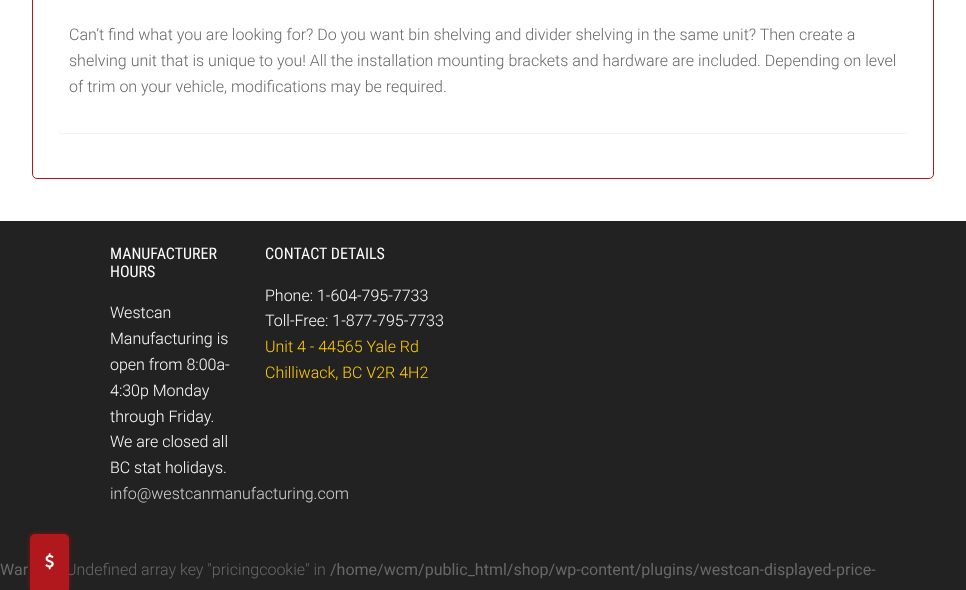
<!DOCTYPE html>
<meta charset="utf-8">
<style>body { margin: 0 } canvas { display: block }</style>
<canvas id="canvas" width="966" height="590"></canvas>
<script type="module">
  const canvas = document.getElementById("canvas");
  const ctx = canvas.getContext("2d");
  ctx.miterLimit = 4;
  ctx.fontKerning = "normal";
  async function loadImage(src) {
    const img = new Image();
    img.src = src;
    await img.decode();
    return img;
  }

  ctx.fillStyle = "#222222";
  ctx.fillRect(0, 0, 966, 590);
  ctx.fillStyle = "#ffffff";
  ctx.fillRect(0, 0, 966, 221);
  ctx.beginPath();
  ctx.moveTo(32.5, -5.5);
  ctx.lineTo(929, -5.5);
  ctx.bezierCurveTo(931.5, -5.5, 933.5, -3.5, 933.5, -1);
  ctx.lineTo(933.5, 174);
  ctx.bezierCurveTo(933.5, 176.5, 931.5, 178.5, 929, 178.5);
  ctx.lineTo(37, 178.5);
  ctx.bezierCurveTo(34.5, 178.5, 32.5, 176.5, 32.5, 174);
  ctx.closePath();
  ctx.strokeStyle = "#b1181e";
  ctx.stroke();
  ctx.fillStyle = "rgba(0, 0, 0, 0.05)";
  ctx.filter = "blur(0.5px)";
  ctx.beginPath();
  ctx.roundRect(58, 12, 850, 122, 4);
  ctx.fill();
  ctx.filter = "none";
  ctx.fillStyle = "#ffffff";
  ctx.beginPath();
  ctx.roundRect(58, 11, 850, 122, 4);
  ctx.fill();
  ctx.font = "300 16px Roboto";
  ctx.fillStyle = "#686868";
  ctx.fillText("Can’t find what you are looking for? Do you want bin shelving and divider shelving in the same unit? Then create a", 69, 40);
  ctx.fillText("shelving unit that is unique to you! All the installation mounting brackets and hardware are included. Depending on level", 69, 66);
  ctx.fillText("of trim on your vehicle, modifications may be required.", 69, 92);
  ctx.font = "16px Roboto Condensed";
  ctx.fillStyle = "#fdfdfd";
  ctx.fillText("MANUFACTURER", 110, 259);
  ctx.fillText("HOURS", 110, 277);
  ctx.font = "300 16px Roboto";
  ctx.fillText("Westcan", 110, 318);
  ctx.fillText("Manufacturing is", 110, 344);
  ctx.fillText("open from 8:00a-", 110, 370);
  ctx.fillText("4:30p Monday", 110, 396);
  ctx.fillText("through Friday.", 110, 422);
  ctx.fillText("We are closed all", 110, 447);
  ctx.fillText("BC stat holidays.", 110, 473);
  ctx.fillStyle = "#d1d1d1";
  ctx.fillText("info@westcanmanufacturing.com", 110, 499);
  ctx.font = "16px Roboto Condensed";
  ctx.fillStyle = "#fdfdfd";
  ctx.fillText("CONTACT DETAILS", 265, 259);
  ctx.font = "300 16px Roboto";
  ctx.fillText("Phone: 1-604-795-7733", 265, 301);
  ctx.fillText("Toll-Free: 1-877-795-7733", 265, 326);
  ctx.fillStyle = "#ffcc00";
  ctx.fillText("Unit 4 - 44565 Yale Rd", 265, 352);
  ctx.fillText("Chilliwack, BC V2R 4H2", 265, 378);
  ctx.font = "16px Roboto";
  ctx.fillStyle = "#686868";
  ctx.fillText("War", 0, 575);
  ctx.fillStyle = "#8f0c0f";
  ctx.filter = "blur(2.5px)";
  ctx.beginPath();
  ctx.roundRect(30, 534, 39, 56, 5);
  ctx.fill();
  ctx.filter = "none";
  ctx.font = "300 16px Roboto";
  ctx.fillStyle = "#686868";
  ctx.fillText("Undefined array key \"pricingcookie\" in", 66, 575);
  ctx.fillStyle = "#b1181e";
  ctx.beginPath();
  ctx.roundRect(30, 534, 39, 56, [5, 5, 0, 0]);
  ctx.fill();
  ctx.drawImage(await loadImage("img1.png"), 45, 553, 9, 17);
  ctx.font = "16px Roboto";
  ctx.fillStyle = "#686868";
  ctx.fillText("/home/wcm/public_html/shop/wp-content/plugins/westcan-displayed-price-", 330, 575);
</script>
